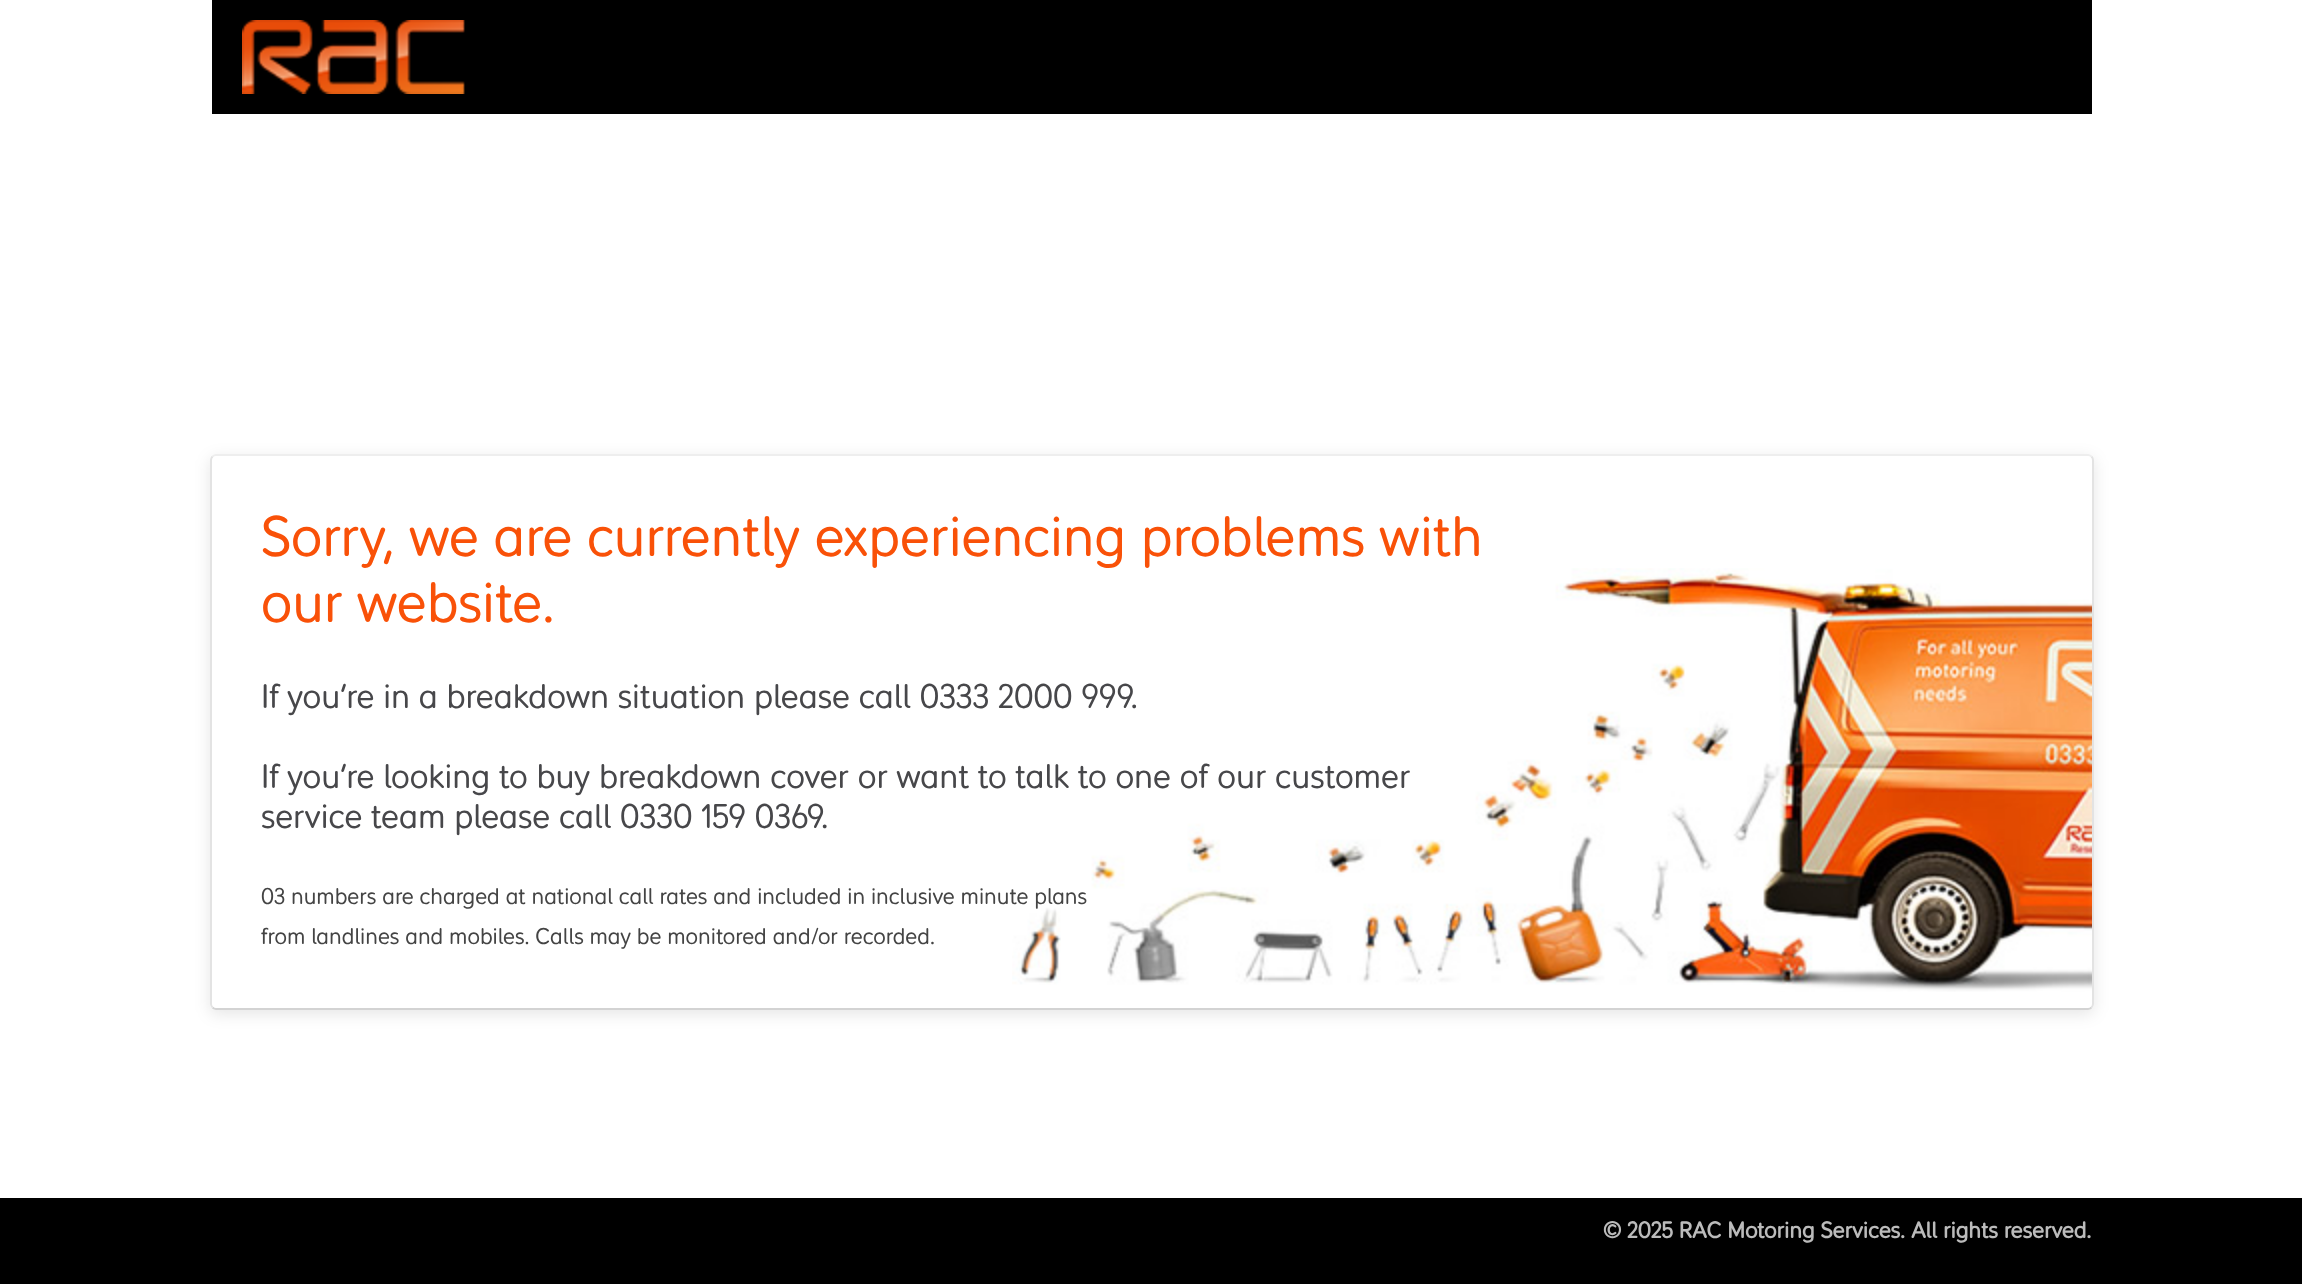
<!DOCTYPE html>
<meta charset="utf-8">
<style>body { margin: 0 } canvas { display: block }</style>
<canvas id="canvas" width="2302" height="1284"></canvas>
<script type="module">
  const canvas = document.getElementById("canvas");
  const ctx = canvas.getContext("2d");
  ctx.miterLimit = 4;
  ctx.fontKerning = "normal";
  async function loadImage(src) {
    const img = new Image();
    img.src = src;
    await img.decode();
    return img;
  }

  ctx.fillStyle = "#ffffff";
  ctx.fillRect(0, 0, 2302, 1284);
  ctx.fillStyle = "#000000";
  ctx.fillRect(212, 0, 1880, 114);
  ctx.drawImage(await loadImage("img1.png"), 242, 20, 223, 74);
  ctx.save();
  ctx.beginPath();
  ctx.moveTo(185, 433);
  ctx.lineTo(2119, 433);
  ctx.lineTo(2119, 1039);
  ctx.lineTo(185, 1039);
  ctx.closePath();
  ctx.moveTo(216, 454);
  ctx.lineTo(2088, 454);
  ctx.bezierCurveTo(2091.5, 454, 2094, 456.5, 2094, 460);
  ctx.lineTo(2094, 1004);
  ctx.bezierCurveTo(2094, 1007.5, 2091.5, 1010, 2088, 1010);
  ctx.lineTo(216, 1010);
  ctx.bezierCurveTo(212.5, 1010, 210, 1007.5, 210, 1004);
  ctx.lineTo(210, 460);
  ctx.bezierCurveTo(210, 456.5, 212.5, 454, 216, 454);
  ctx.closePath();
  ctx.clip("evenodd");
  ctx.fillStyle = "rgba(0, 0, 0, 0.1)";
  ctx.filter = "blur(8px)";
  ctx.beginPath();
  ctx.roundRect(210, 458, 1884, 556, 6);
  ctx.fill();
  ctx.filter = "none";
  ctx.restore();
  ctx.drawImage(await loadImage("img2.png"), 1012, 568, 1080, 424);
  ctx.beginPath();
  ctx.moveTo(212.5, 456.5);
  ctx.bezierCurveTo(213.5, 455.5, 214.5, 455, 216, 455);
  ctx.lineTo(2088, 455);
  ctx.bezierCurveTo(2089.5, 455, 2090.5, 455.5, 2091.5, 456.5);
  ctx.strokeStyle = "#eeeeee";
  ctx.lineWidth = 2;
  ctx.stroke();
  ctx.beginPath();
  ctx.moveTo(2091.5, 456.5);
  ctx.bezierCurveTo(2092.5, 457.5, 2093, 458.5, 2093, 460);
  ctx.lineTo(2093, 1004);
  ctx.bezierCurveTo(2093, 1005.5, 2092.5, 1006.5, 2091.5, 1007.5);
  ctx.strokeStyle = "#e3e3e3";
  ctx.stroke();
  ctx.beginPath();
  ctx.moveTo(2091.5, 1007.5);
  ctx.bezierCurveTo(2090.5, 1008.5, 2089.5, 1009, 2088, 1009);
  ctx.lineTo(216, 1009);
  ctx.bezierCurveTo(214.5, 1009, 213.5, 1008.5, 212.5, 1007.5);
  ctx.strokeStyle = "#d3d3d3";
  ctx.stroke();
  ctx.beginPath();
  ctx.moveTo(212.5, 1007.5);
  ctx.bezierCurveTo(211.5, 1006.5, 211, 1005.5, 211, 1004);
  ctx.lineTo(211, 460);
  ctx.bezierCurveTo(211, 458.5, 211.5, 457.5, 212.5, 456.5);
  ctx.strokeStyle = "#e3e3e3";
  ctx.stroke();
  ctx.font = "60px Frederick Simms";
  ctx.fillStyle = "#f95108";
  ctx.fillText("Sorry, we are currently experiencing problems with", 261, 556);
  ctx.fillText("our website.", 261, 622);
  ctx.font = "36px Frederick Simms";
  ctx.fillStyle = "#47474a";
  ctx.fillText("If you’re in a breakdown situation please call 0333 2000 999.", 261, 708);
  ctx.fillText("If you’re looking to buy breakdown cover or want to talk to one of our customer", 261, 788);
  ctx.fillText("service team please call 0330 159 0369.", 261, 828);
  ctx.font = "24px Frederick Simms";
  ctx.fillStyle = "#444444";
  ctx.fillText("03 numbers are charged at national call rates and included in inclusive minute plans", 261, 904);
  ctx.fillText("from landlines and mobiles. Calls may be monitored and/or recorded.", 261, 944);
  ctx.fillStyle = "#000000";
  ctx.fillRect(0, 1198, 2302, 86);
  ctx.font = "bold 24px Frederick Simms";
  ctx.fillStyle = "#bbbbbb";
  ctx.fillText("© 2025 RAC Motoring Services. All rights reserved.", 1603, 1238);
</script>
